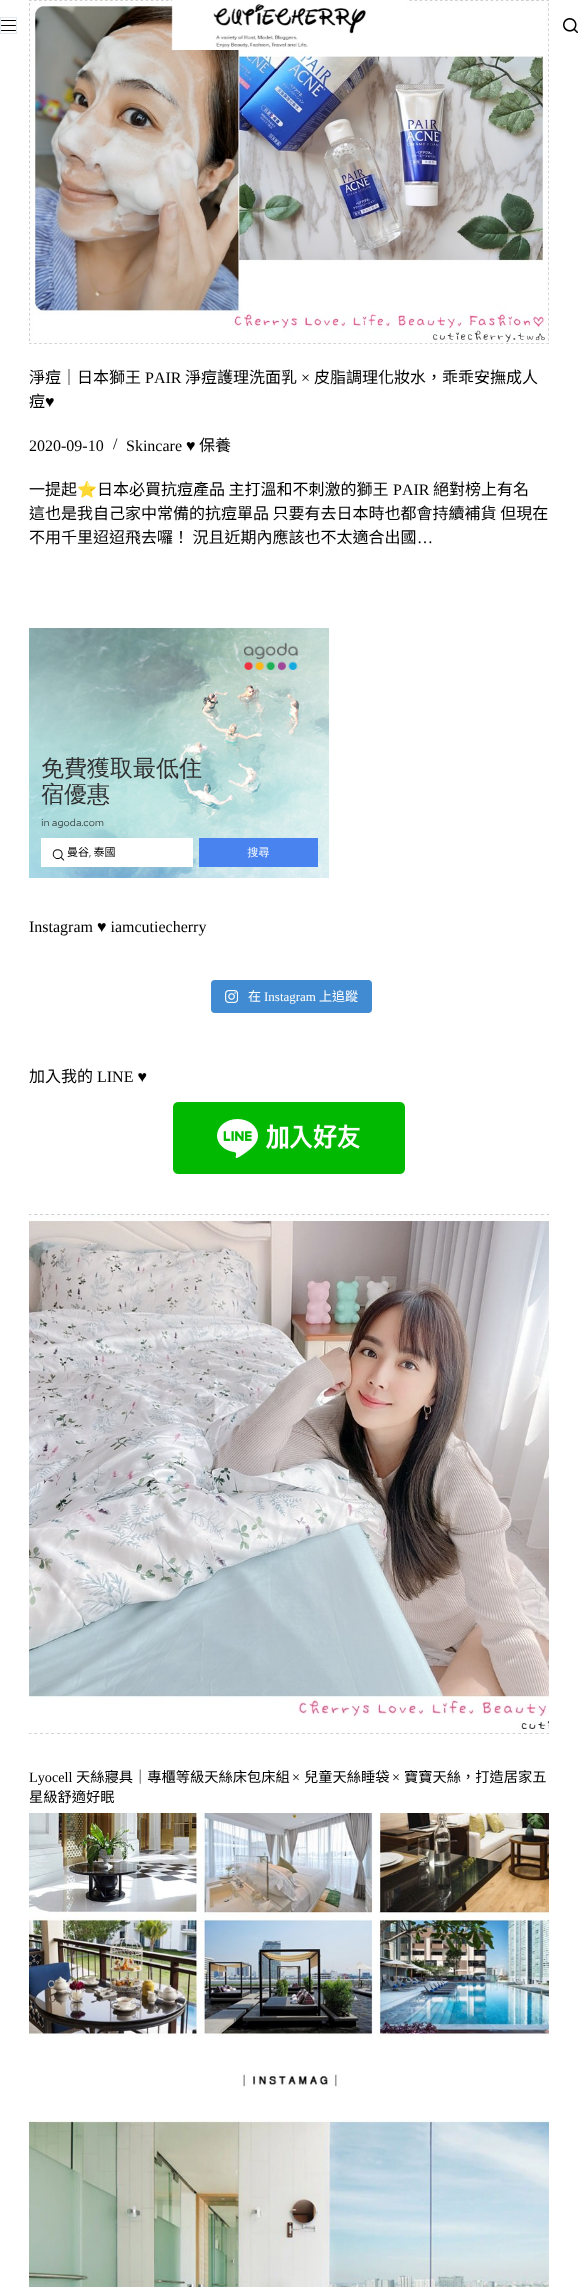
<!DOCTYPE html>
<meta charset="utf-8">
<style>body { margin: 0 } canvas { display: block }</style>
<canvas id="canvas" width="578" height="2287"></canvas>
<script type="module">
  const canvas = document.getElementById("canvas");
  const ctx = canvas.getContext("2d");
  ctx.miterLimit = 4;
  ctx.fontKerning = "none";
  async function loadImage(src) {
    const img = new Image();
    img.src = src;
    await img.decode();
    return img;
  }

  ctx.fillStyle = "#ffffff";
  ctx.fillRect(0, 0, 578, 2287);
  ctx.strokeStyle = "#e3e8ed";
  ctx.strokeRect(0.5, 17.5, 16, 16);
  ctx.fillStyle = "#000000";
  ctx.beginPath();
  ctx.roundRect(1, 20, 15, 1, 0.5);
  ctx.fill();
  ctx.beginPath();
  ctx.roundRect(1, 25, 15, 1, 0.5);
  ctx.fill();
  ctx.beginPath();
  ctx.roundRect(1, 30, 15, 1, 0.5);
  ctx.fill();
  ctx.drawImage(await loadImage("img3.png"), 29, 0, 520, 344);
  ctx.drawImage(await loadImage("img1.png"), 171, 0, 236, 50);
  ctx.drawImage(await loadImage("img2.png"), 563, 18, 15, 15);
  ctx.font = "16px Noto Sans CJK TC";
  ctx.fillText("淨痘｜日本獅王", 29, 383);
  ctx.font = "16px Liberation Serif";
  ctx.fillText("PAIR", 145, 383);
  ctx.font = "16px Noto Sans CJK TC";
  ctx.fillText("淨痘護理洗面乳", 185, 383);
  ctx.font = "16px Liberation Serif";
  ctx.fillText("×", 301, 383);
  ctx.font = "16px Noto Sans CJK TC";
  ctx.fillText("皮脂調理化妝水，乖乖安撫成人", 314, 383);
  ctx.fillText("痘", 29, 407);
  ctx.font = "16px Liberation Serif";
  ctx.fillText("♥", 45, 407);
  ctx.fillText("2020-09-10", 29, 451);
  ctx.fillText("/", 113, 449);
  ctx.fillText("Skincare ♥", 126, 451);
  ctx.font = "16px Noto Sans CJK TC";
  ctx.fillText("保養", 199, 451);
  ctx.fillText("一提起", 29, 495);
  ctx.font = "16px Noto Color Emoji";
  ctx.fillText("⭐", 77, 495);
  ctx.font = "16px Noto Sans CJK TC";
  ctx.fillText("日本必買抗痘產品 主打溫和不刺激的獅王", 97, 495);
  ctx.font = "16px Liberation Serif";
  ctx.fillText("PAIR", 393, 495);
  ctx.font = "16px Noto Sans CJK TC";
  ctx.fillText("絕對榜上有名", 433, 495);
  ctx.fillText("這也是我自己家中常備的抗痘單品 只要有去日本時也都會持續補貨 但現在", 29, 519);
  ctx.fillText("不用千里迢迢飛去囉！ 況且近期內應該也不太適合出國", 29, 543);
  ctx.font = "16px Liberation Serif";
  ctx.fillText("…", 417, 543);
  ctx.drawImage(await loadImage("img4.png"), 29, 628, 300, 250);
  ctx.fillText("Instagram ♥ iamcutiecherry", 29, 932);
  ctx.fillStyle = "#408bd1";
  ctx.beginPath();
  ctx.roundRect(211, 980, 161, 33, 4);
  ctx.fill();
  ctx.drawImage(await loadImage("img5.png"), 225, 990, 13, 13);
  ctx.font = "13px Noto Sans CJK TC";
  ctx.fillStyle = "#ffffff";
  ctx.fillText("在", 248, 1001);
  ctx.font = "13px Liberation Serif";
  ctx.fillText("Instagram", 264, 1001);
  ctx.font = "13px Noto Sans CJK TC";
  ctx.fillText("上追蹤", 319, 1001);
  ctx.font = "16px Noto Sans CJK TC";
  ctx.fillStyle = "#000000";
  ctx.fillText("加入我的", 29, 1082);
  ctx.font = "16px Liberation Serif";
  ctx.fillText("LINE ♥", 97, 1082);
  ctx.drawImage(await loadImage("img6.png"), 173, 1102, 232, 72);
  ctx.drawImage(await loadImage("img7.png"), 29, 1214, 520, 520);
  ctx.font = "14.25px Liberation Serif";
  ctx.fillText("Lyocell", 29, 1782);
  ctx.font = "14.25px Noto Sans CJK TC";
  ctx.fillText("天絲寢具｜專櫃等級天絲床包床組", 76, 1782);
  ctx.font = "14.25px Liberation Serif";
  ctx.fillText("×", 292, 1782);
  ctx.font = "14.25px Noto Sans CJK TC";
  ctx.fillText("兒童天絲睡袋", 304, 1782);
  ctx.font = "14.25px Liberation Serif";
  ctx.fillText("×", 392, 1782);
  ctx.font = "14.25px Noto Sans CJK TC";
  ctx.fillText("寶寶天絲，打造居家五", 404, 1782);
  ctx.fillText("星級舒適好眠", 29, 1802);
  ctx.drawImage(await loadImage("img8.png"), 29, 1813, 520, 474);
</script>
